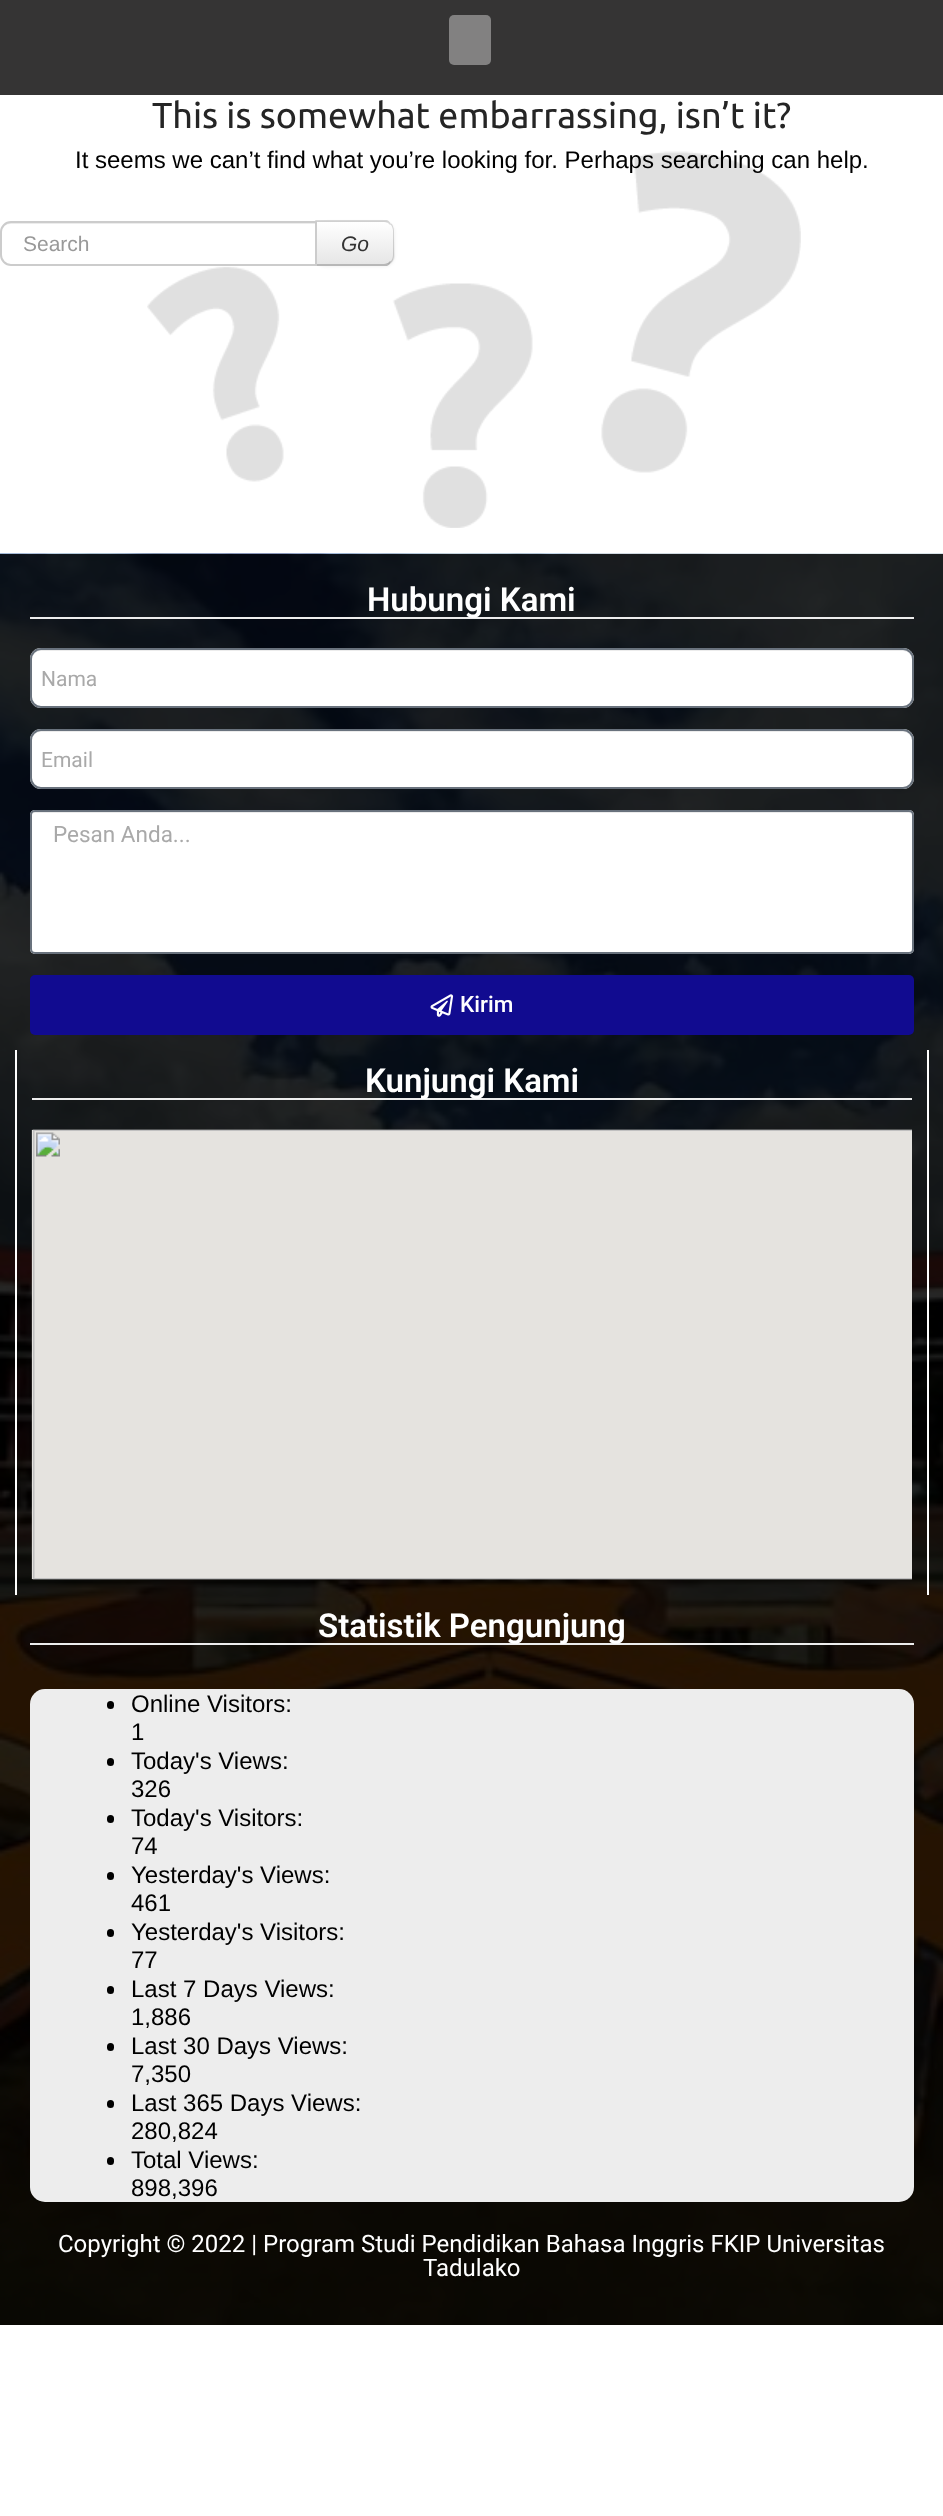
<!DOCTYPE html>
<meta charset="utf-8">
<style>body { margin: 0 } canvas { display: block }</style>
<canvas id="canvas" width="943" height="2516"></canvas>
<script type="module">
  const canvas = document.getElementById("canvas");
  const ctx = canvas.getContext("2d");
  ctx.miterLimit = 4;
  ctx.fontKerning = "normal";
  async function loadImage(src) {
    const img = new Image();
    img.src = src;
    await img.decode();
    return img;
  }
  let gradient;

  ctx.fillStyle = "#ffffff";
  ctx.fillRect(0, 0, 943, 2516);
  ctx.fillStyle = "#353434";
  ctx.fillRect(0, 0, 943, 95);
  ctx.fillStyle = "#828181";
  ctx.beginPath();
  ctx.roundRect(449, 15, 42, 50, 5);
  ctx.fill();
  ctx.font = "36px Ubuntu";
  ctx.fillStyle = "#252525";
  ctx.fillText("This is somewhat embarrassing, isn’t it?", 152, 128);
  ctx.drawImage(await loadImage("img1.png"), 147, 151, 654, 377);
  ctx.font = "24px Liberation Sans";
  ctx.fillStyle = "#000000";
  ctx.fillText("It seems we can’t find what you’re looking for. Perhaps searching can help.", 75, 168);
  ctx.fillStyle = "rgba(0, 0, 0, 0.05)";
  ctx.filter = "blur(1.5px)";
  ctx.beginPath();
  ctx.roundRect(315, 222, 80, 45, 11);
  ctx.fill();
  ctx.filter = "none";
  ctx.fillStyle = "#f5f5f5";
  ctx.beginPath();
  ctx.roundRect(315, 221, 80, 45, [0, 11, 11, 0]);
  ctx.fill();
  ctx.save();
  ctx.beginPath();
  ctx.roundRect(315, 221, 80, 45, [0, 11, 11, 0]);
  ctx.clip();
  gradient = ctx.createLinearGradient(355, 222, 355, 264);
  gradient.addColorStop(0, "#ffffff");
  gradient.addColorStop(1, "#e6e6e6");
  ctx.fillStyle = gradient;
  ctx.fillRect(317, 222, 78, 42);
  ctx.restore();
  ctx.fillStyle = "rgba(0, 0, 0, 0.15)";
  ctx.beginPath();
  ctx.moveTo(315, 220);
  ctx.lineTo(387, 220);
  ctx.bezierCurveTo(389, 221, 390, 222, 391, 224);
  ctx.lineTo(390, 225);
  ctx.bezierCurveTo(389, 223, 386, 222, 384, 222);
  ctx.lineTo(316, 222);
  ctx.closePath();
  ctx.fill();
  ctx.beginPath();
  ctx.moveTo(391.5, 223.5);
  ctx.bezierCurveTo(393, 225.5, 394, 228, 394, 231);
  ctx.lineTo(394, 255);
  ctx.bezierCurveTo(394, 258, 393, 260.5, 391.5, 262.5);
  ctx.lineTo(390.5, 261.5);
  ctx.bezierCurveTo(392, 260, 393, 257.5, 393, 255);
  ctx.lineTo(393, 231);
  ctx.bezierCurveTo(393, 228.5, 392, 226, 390.5, 224.5);
  ctx.closePath();
  ctx.fill();
  ctx.fillStyle = "rgba(0, 0, 0, 0.25)";
  ctx.beginPath();
  ctx.moveTo(387, 266);
  ctx.lineTo(315, 266);
  ctx.lineTo(316, 264);
  ctx.lineTo(384, 264);
  ctx.bezierCurveTo(386, 264, 389, 263, 390, 261);
  ctx.lineTo(391, 262);
  ctx.bezierCurveTo(390, 264, 389, 265, 387, 266);
  ctx.closePath();
  ctx.fill();
  ctx.fillStyle = "#ffffff";
  ctx.beginPath();
  ctx.roundRect(0, 221, 317, 45, [11, 0, 0, 11]);
  ctx.fill();
  ctx.fillStyle = "#ececec";
  ctx.beginPath();
  ctx.moveTo(10, 224);
  ctx.lineTo(315, 224);
  ctx.lineTo(315, 222);
  ctx.lineTo(11, 222);
  ctx.bezierCurveTo(6, 222, 2, 226, 2, 231);
  ctx.bezierCurveTo(3, 227, 5, 224, 10, 224);
  ctx.closePath();
  ctx.fill();
  ctx.beginPath();
  ctx.roundRect(1, 222, 315, 43, [10, 0, 0, 10]);
  ctx.strokeStyle = "#cccccc";
  ctx.lineWidth = 2;
  ctx.stroke();
  ctx.font = "21px Liberation Sans";
  ctx.fillStyle = "#999999";
  ctx.fillText("Search", 23, 251);
  ctx.font = "italic 21px Liberation Sans";
  ctx.fillStyle = "#333333";
  ctx.fillText("Go", 341, 251);
  ctx.drawImage(await loadImage("img2.png"), 0, 553, 943, 1772);
  ctx.fillStyle = "#ededed";
  ctx.fillRect(30, 617, 884, 2);
  ctx.font = "600 33px Roboto";
  ctx.fillStyle = "#ffffff";
  ctx.fillText("Hubungi Kami", 367, 611);
  ctx.beginPath();
  ctx.roundRect(30, 648, 884, 60, 11);
  ctx.fill();
  ctx.fillStyle = "#ececec";
  ctx.beginPath();
  ctx.moveTo(40, 651);
  ctx.lineTo(903, 651);
  ctx.bezierCurveTo(908, 651, 912, 655, 912, 660);
  ctx.bezierCurveTo(912, 655, 909, 650, 903, 650);
  ctx.lineTo(41, 650);
  ctx.bezierCurveTo(35, 650, 32, 655, 32, 660);
  ctx.bezierCurveTo(32, 655, 36, 651, 40, 651);
  ctx.closePath();
  ctx.fill();
  ctx.beginPath();
  ctx.roundRect(31, 649, 882, 58, 10);
  ctx.strokeStyle = "#69727d";
  ctx.stroke();
  ctx.font = "21px Roboto";
  ctx.fillStyle = "#a9a9a9";
  ctx.fillText("Nama", 41, 686);
  ctx.fillStyle = "#ffffff";
  ctx.beginPath();
  ctx.roundRect(30, 729, 884, 60, 11);
  ctx.fill();
  ctx.fillStyle = "#ececec";
  ctx.beginPath();
  ctx.moveTo(40, 732);
  ctx.lineTo(903, 732);
  ctx.bezierCurveTo(908, 732, 912, 736, 912, 741);
  ctx.bezierCurveTo(912, 736, 909, 731, 903, 731);
  ctx.lineTo(41, 731);
  ctx.bezierCurveTo(35, 731, 32, 736, 32, 741);
  ctx.bezierCurveTo(32, 736, 36, 732, 40, 732);
  ctx.closePath();
  ctx.fill();
  ctx.beginPath();
  ctx.roundRect(31, 730, 882, 58, 10);
  ctx.stroke();
  ctx.fillStyle = "#a9a9a9";
  ctx.fillText("Email", 41, 767);
  ctx.fillStyle = "#ffffff";
  ctx.beginPath();
  ctx.roundRect(30, 810, 884, 144, 5);
  ctx.fill();
  ctx.fillStyle = "#ececec";
  ctx.beginPath();
  ctx.moveTo(34, 813);
  ctx.lineTo(909, 813);
  ctx.bezierCurveTo(911, 813, 912, 814, 912, 816);
  ctx.bezierCurveTo(912, 814, 911, 812, 909, 812);
  ctx.lineTo(35, 812);
  ctx.bezierCurveTo(33, 812, 32, 814, 32, 816);
  ctx.bezierCurveTo(32, 814, 33, 813, 34, 813);
  ctx.closePath();
  ctx.fill();
  ctx.beginPath();
  ctx.roundRect(31, 811, 882, 142, 4);
  ctx.stroke();
  ctx.font = "22.5px Roboto";
  ctx.fillStyle = "#a9a9a9";
  ctx.fillText("Pesan Anda...", 53, 842);
  ctx.fillStyle = "#110b90";
  ctx.beginPath();
  ctx.roundRect(30, 975, 884, 60, 5);
  ctx.fill();
  ctx.drawImage(await loadImage("img3.png"), 430, 994, 24, 23);
  ctx.font = "500 22.5px Roboto";
  ctx.fillStyle = "#ffffff";
  ctx.fillText("Kirim", 460, 1012);
  ctx.fillRect(927, 1050, 2, 545);
  ctx.fillRect(15, 1050, 2, 545);
  ctx.fillStyle = "#ededed";
  ctx.fillRect(32, 1098, 880, 2);
  ctx.font = "600 33px Roboto";
  ctx.fillStyle = "#ffffff";
  ctx.fillText("Kunjungi Kami", 365, 1092);
  ctx.drawImage(await loadImage("img4.png"), 31, 1129, 881, 451);
  ctx.fillStyle = "#ededed";
  ctx.fillRect(30, 1643, 884, 2);
  ctx.fillStyle = "#ffffff";
  ctx.fillText("Statistik Pengunjung", 318, 1637);
  ctx.fillStyle = "#ededed";
  ctx.beginPath();
  ctx.roundRect(30, 1689, 884, 513, 15);
  ctx.fill();
  ctx.fillStyle = "#000000";
  ctx.beginPath();
  ctx.roundRect(107, 1701, 7, 8, 3.5);
  ctx.fill();
  ctx.font = "24px Liberation Sans";
  ctx.fillText("Online Visitors:", 131, 1712);
  ctx.fillText("1", 131, 1740);
  ctx.beginPath();
  ctx.roundRect(107, 1758, 7, 8, 3.5);
  ctx.fill();
  ctx.fillText("Today's Views:", 131, 1769);
  ctx.fillText("326", 131, 1797);
  ctx.beginPath();
  ctx.roundRect(107, 1815, 7, 8, 3.5);
  ctx.fill();
  ctx.fillText("Today's Visitors:", 131, 1826);
  ctx.fillText("74", 131, 1854);
  ctx.beginPath();
  ctx.roundRect(107, 1872, 7, 8, 3.5);
  ctx.fill();
  ctx.fillText("Yesterday's Views:", 131, 1883);
  ctx.fillText("461", 131, 1911);
  ctx.beginPath();
  ctx.roundRect(107, 1929, 7, 8, 3.5);
  ctx.fill();
  ctx.fillText("Yesterday's Visitors:", 131, 1940);
  ctx.fillText("77", 131, 1968);
  ctx.beginPath();
  ctx.roundRect(107, 1986, 7, 8, 3.5);
  ctx.fill();
  ctx.fillText("Last 7 Days Views:", 131, 1997);
  ctx.fillText("1,886", 131, 2025);
  ctx.beginPath();
  ctx.roundRect(107, 2043, 7, 8, 3.5);
  ctx.fill();
  ctx.fillText("Last 30 Days Views:", 131, 2054);
  ctx.fillText("7,350", 131, 2082);
  ctx.beginPath();
  ctx.roundRect(107, 2100, 7, 8, 3.5);
  ctx.fill();
  ctx.fillText("Last 365 Days Views:", 131, 2111);
  ctx.fillText("280,824", 131, 2139);
  ctx.beginPath();
  ctx.roundRect(107, 2157, 7, 8, 3.5);
  ctx.fill();
  ctx.fillText("Total Views:", 131, 2168);
  ctx.fillText("898,396", 131, 2196);
  ctx.font = "24px Roboto";
  ctx.fillStyle = "#ffffff";
  ctx.fillText("Copyright © 2022 | Program Studi Pendidikan Bahasa Inggris FKIP Universitas", 58, 2252);
  ctx.fillText("Tadulako", 423, 2276);
</script>
